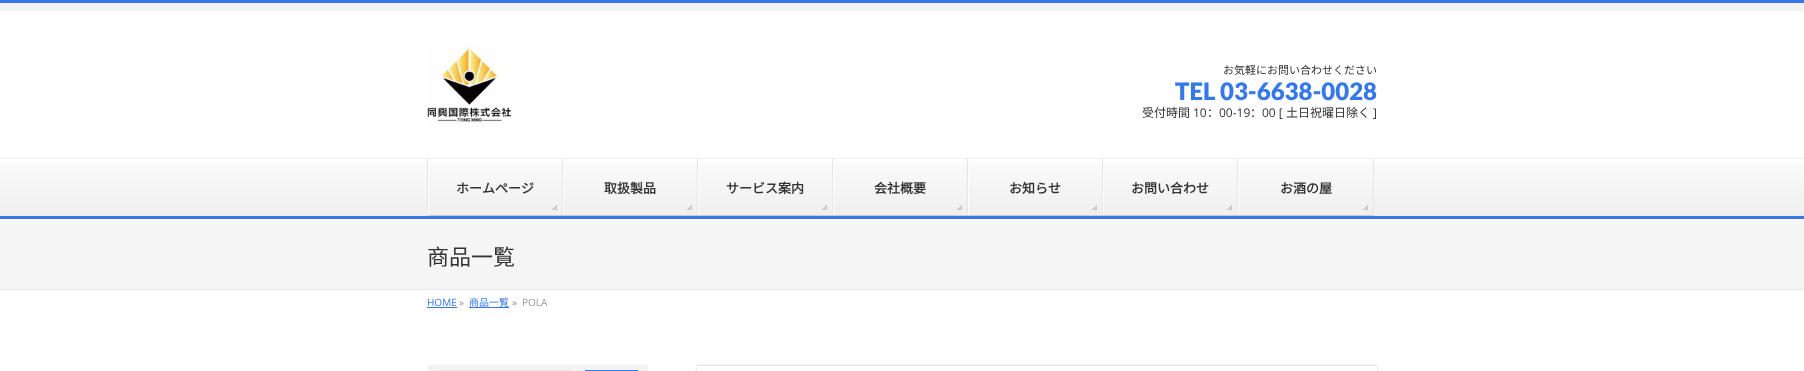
<!DOCTYPE html>
<meta charset="utf-8">
<style>body { margin: 0 } canvas { display: block }</style>
<canvas id="canvas" width="1804" height="371"></canvas>
<script type="module">
  const canvas = document.getElementById("canvas");
  const ctx = canvas.getContext("2d");
  ctx.miterLimit = 4;
  ctx.fontKerning = "normal";
  async function loadImage(src) {
    const img = new Image();
    img.src = src;
    await img.decode();
    return img;
  }

  ctx.fillStyle = "#ffffff";
  ctx.fillRect(0, 0, 1804, 371);
  ctx.fillStyle = "#f3f3f3";
  ctx.fillRect(0, 3, 1804, 8);
  ctx.fillStyle = "#3578ea";
  ctx.fillRect(0, 0, 1804, 3);
  ctx.drawImage(await loadImage("img1.png"), 427, 44, 84, 84);
  ctx.font = "11px Noto Sans CJK SC";
  ctx.fillStyle = "#333333";
  ctx.fillText("お気軽にお問い合わせください", 1223, 74);
  ctx.font = "900 24px Lato";
  ctx.fillStyle = "#3578ea";
  ctx.fillText("TEL 03-6638-0028", 1175, 100);
  ctx.font = "12px Noto Sans CJK SC";
  ctx.fillStyle = "#333333";
  ctx.fillText("受付時間", 1142, 117);
  ctx.font = "12px Open Sans";
  ctx.fillText("10", 1193, 117);
  ctx.font = "12px Noto Sans CJK SC";
  ctx.fillText("：", 1207, 117);
  ctx.font = "12px Open Sans";
  ctx.fillText("00-19", 1219, 117);
  ctx.font = "12px Noto Sans CJK SC";
  ctx.fillText("：", 1250, 117);
  ctx.font = "12px Open Sans";
  ctx.fillText("00 [", 1262, 117);
  ctx.font = "12px Noto Sans CJK SC";
  ctx.fillText("土日祝曜日除く", 1286, 117);
  ctx.font = "12px Open Sans";
  ctx.fillText("]", 1373, 117);
  ctx.drawImage(await loadImage("img2.png"), 0, 163, 1804, 53);
  ctx.fillStyle = "#eeeeee";
  ctx.fillRect(0, 158, 1804, 1);
  ctx.fillStyle = "#3578ea";
  ctx.fillRect(0, 216, 1804, 3);
  ctx.fillStyle = "#e5e5e5";
  ctx.fillRect(427, 159, 1, 57);
  ctx.fillStyle = "#ffffff";
  ctx.fillRect(428, 159, 1, 57);
  ctx.drawImage(await loadImage("img3.png"), 552, 205, 5, 5);
  ctx.fillStyle = "#e5e5e5";
  ctx.fillRect(562, 159, 1, 57);
  ctx.fillStyle = "#cccccc";
  ctx.fillRect(428, 215, 135, 1);
  ctx.font = "bold 13px Noto Sans CJK SC";
  ctx.fillStyle = "#333333";
  ctx.fillText("ホームページ", 456, 193);
  ctx.fillStyle = "#ffffff";
  ctx.fillRect(563, 159, 1, 57);
  ctx.drawImage(await loadImage("img3.png"), 687, 205, 5, 5);
  ctx.fillStyle = "#e5e5e5";
  ctx.fillRect(697, 159, 1, 57);
  ctx.fillStyle = "#cccccc";
  ctx.fillRect(563, 215, 135, 1);
  ctx.fillStyle = "#333333";
  ctx.fillText("取扱製品", 604, 193);
  ctx.fillStyle = "#ffffff";
  ctx.fillRect(698, 159, 1, 57);
  ctx.drawImage(await loadImage("img3.png"), 822, 205, 5, 5);
  ctx.fillStyle = "#e5e5e5";
  ctx.fillRect(832, 159, 1, 57);
  ctx.fillStyle = "#cccccc";
  ctx.fillRect(698, 215, 135, 1);
  ctx.fillStyle = "#333333";
  ctx.fillText("サービス案内", 726, 193);
  ctx.fillStyle = "#ffffff";
  ctx.fillRect(833, 159, 1, 57);
  ctx.drawImage(await loadImage("img3.png"), 957, 205, 5, 5);
  ctx.fillStyle = "#e5e5e5";
  ctx.fillRect(967, 159, 1, 57);
  ctx.fillStyle = "#cccccc";
  ctx.fillRect(833, 215, 135, 1);
  ctx.fillStyle = "#333333";
  ctx.fillText("会社概要", 874, 193);
  ctx.fillStyle = "#ffffff";
  ctx.fillRect(968, 159, 1, 57);
  ctx.drawImage(await loadImage("img3.png"), 1092, 205, 5, 5);
  ctx.fillStyle = "#e5e5e5";
  ctx.fillRect(1102, 159, 1, 57);
  ctx.fillStyle = "#cccccc";
  ctx.fillRect(968, 215, 135, 1);
  ctx.fillStyle = "#333333";
  ctx.fillText("お知らせ", 1009, 193);
  ctx.fillStyle = "#ffffff";
  ctx.fillRect(1103, 159, 1, 57);
  ctx.drawImage(await loadImage("img3.png"), 1227, 205, 5, 5);
  ctx.fillStyle = "#e5e5e5";
  ctx.fillRect(1237, 159, 1, 57);
  ctx.fillStyle = "#cccccc";
  ctx.fillRect(1103, 215, 135, 1);
  ctx.fillStyle = "#333333";
  ctx.fillText("お問い合わせ", 1131, 193);
  ctx.fillStyle = "#ffffff";
  ctx.fillRect(1238, 159, 1, 57);
  ctx.drawImage(await loadImage("img3.png"), 1363, 205, 5, 5);
  ctx.fillStyle = "#e5e5e5";
  ctx.fillRect(1373, 159, 1, 57);
  ctx.fillStyle = "#cccccc";
  ctx.fillRect(1238, 215, 136, 1);
  ctx.fillStyle = "#333333";
  ctx.fillText("お酒の屋", 1280, 193);
  ctx.fillStyle = "#f5f5f5";
  ctx.fillRect(0, 219, 1804, 70);
  ctx.fillStyle = "#e5e5e5";
  ctx.fillRect(0, 289, 1804, 1);
  ctx.font = "22px Noto Sans CJK SC";
  ctx.fillStyle = "#333333";
  ctx.fillText("商品一覧", 427, 265);
  ctx.font = "10px Open Sans";
  ctx.fillStyle = "#3578ea";
  ctx.fillText("HOME", 427, 306);
  ctx.fillRect(427, 307, 30, 1);
  ctx.fillStyle = "#999999";
  ctx.fillText("»", 459, 306);
  ctx.font = "10px Noto Sans CJK SC";
  ctx.fillStyle = "#3578ea";
  ctx.fillText("商品一覧", 469, 306);
  ctx.fillRect(469, 307, 40, 1);
  ctx.font = "10px Open Sans";
  ctx.fillStyle = "#999999";
  ctx.fillText("»", 512, 306);
  ctx.fillText("POLA", 522, 306);
  ctx.fillStyle = "#f3f3f3";
  ctx.fillRect(428, 365, 220, 6);
  ctx.beginPath();
  ctx.roundRect(440.5, 370.5, 131, 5, 3.5);
  ctx.strokeStyle = "#e5e5e5";
  ctx.stroke();
  ctx.fillStyle = "#3578ea";
  ctx.fillRect(585, 370, 53, 1);
  ctx.save();
  ctx.beginPath();
  ctx.moveTo(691, 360);
  ctx.lineTo(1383, 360);
  ctx.lineTo(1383, 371);
  ctx.lineTo(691, 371);
  ctx.closePath();
  ctx.moveTo(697, 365);
  ctx.lineTo(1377, 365);
  ctx.lineTo(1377, 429);
  ctx.lineTo(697, 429);
  ctx.closePath();
  ctx.clip("evenodd");
  ctx.fillStyle = "rgba(0, 0, 0, 0.2)";
  ctx.filter = "blur(1.5px)";
  ctx.beginPath();
  ctx.rect(697, 366, 680, 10);
  ctx.fill();
  ctx.filter = "none";
  ctx.restore();
  ctx.fillStyle = "#e5e5e5";
  ctx.fillRect(697, 365, 680, 1);
</script>
